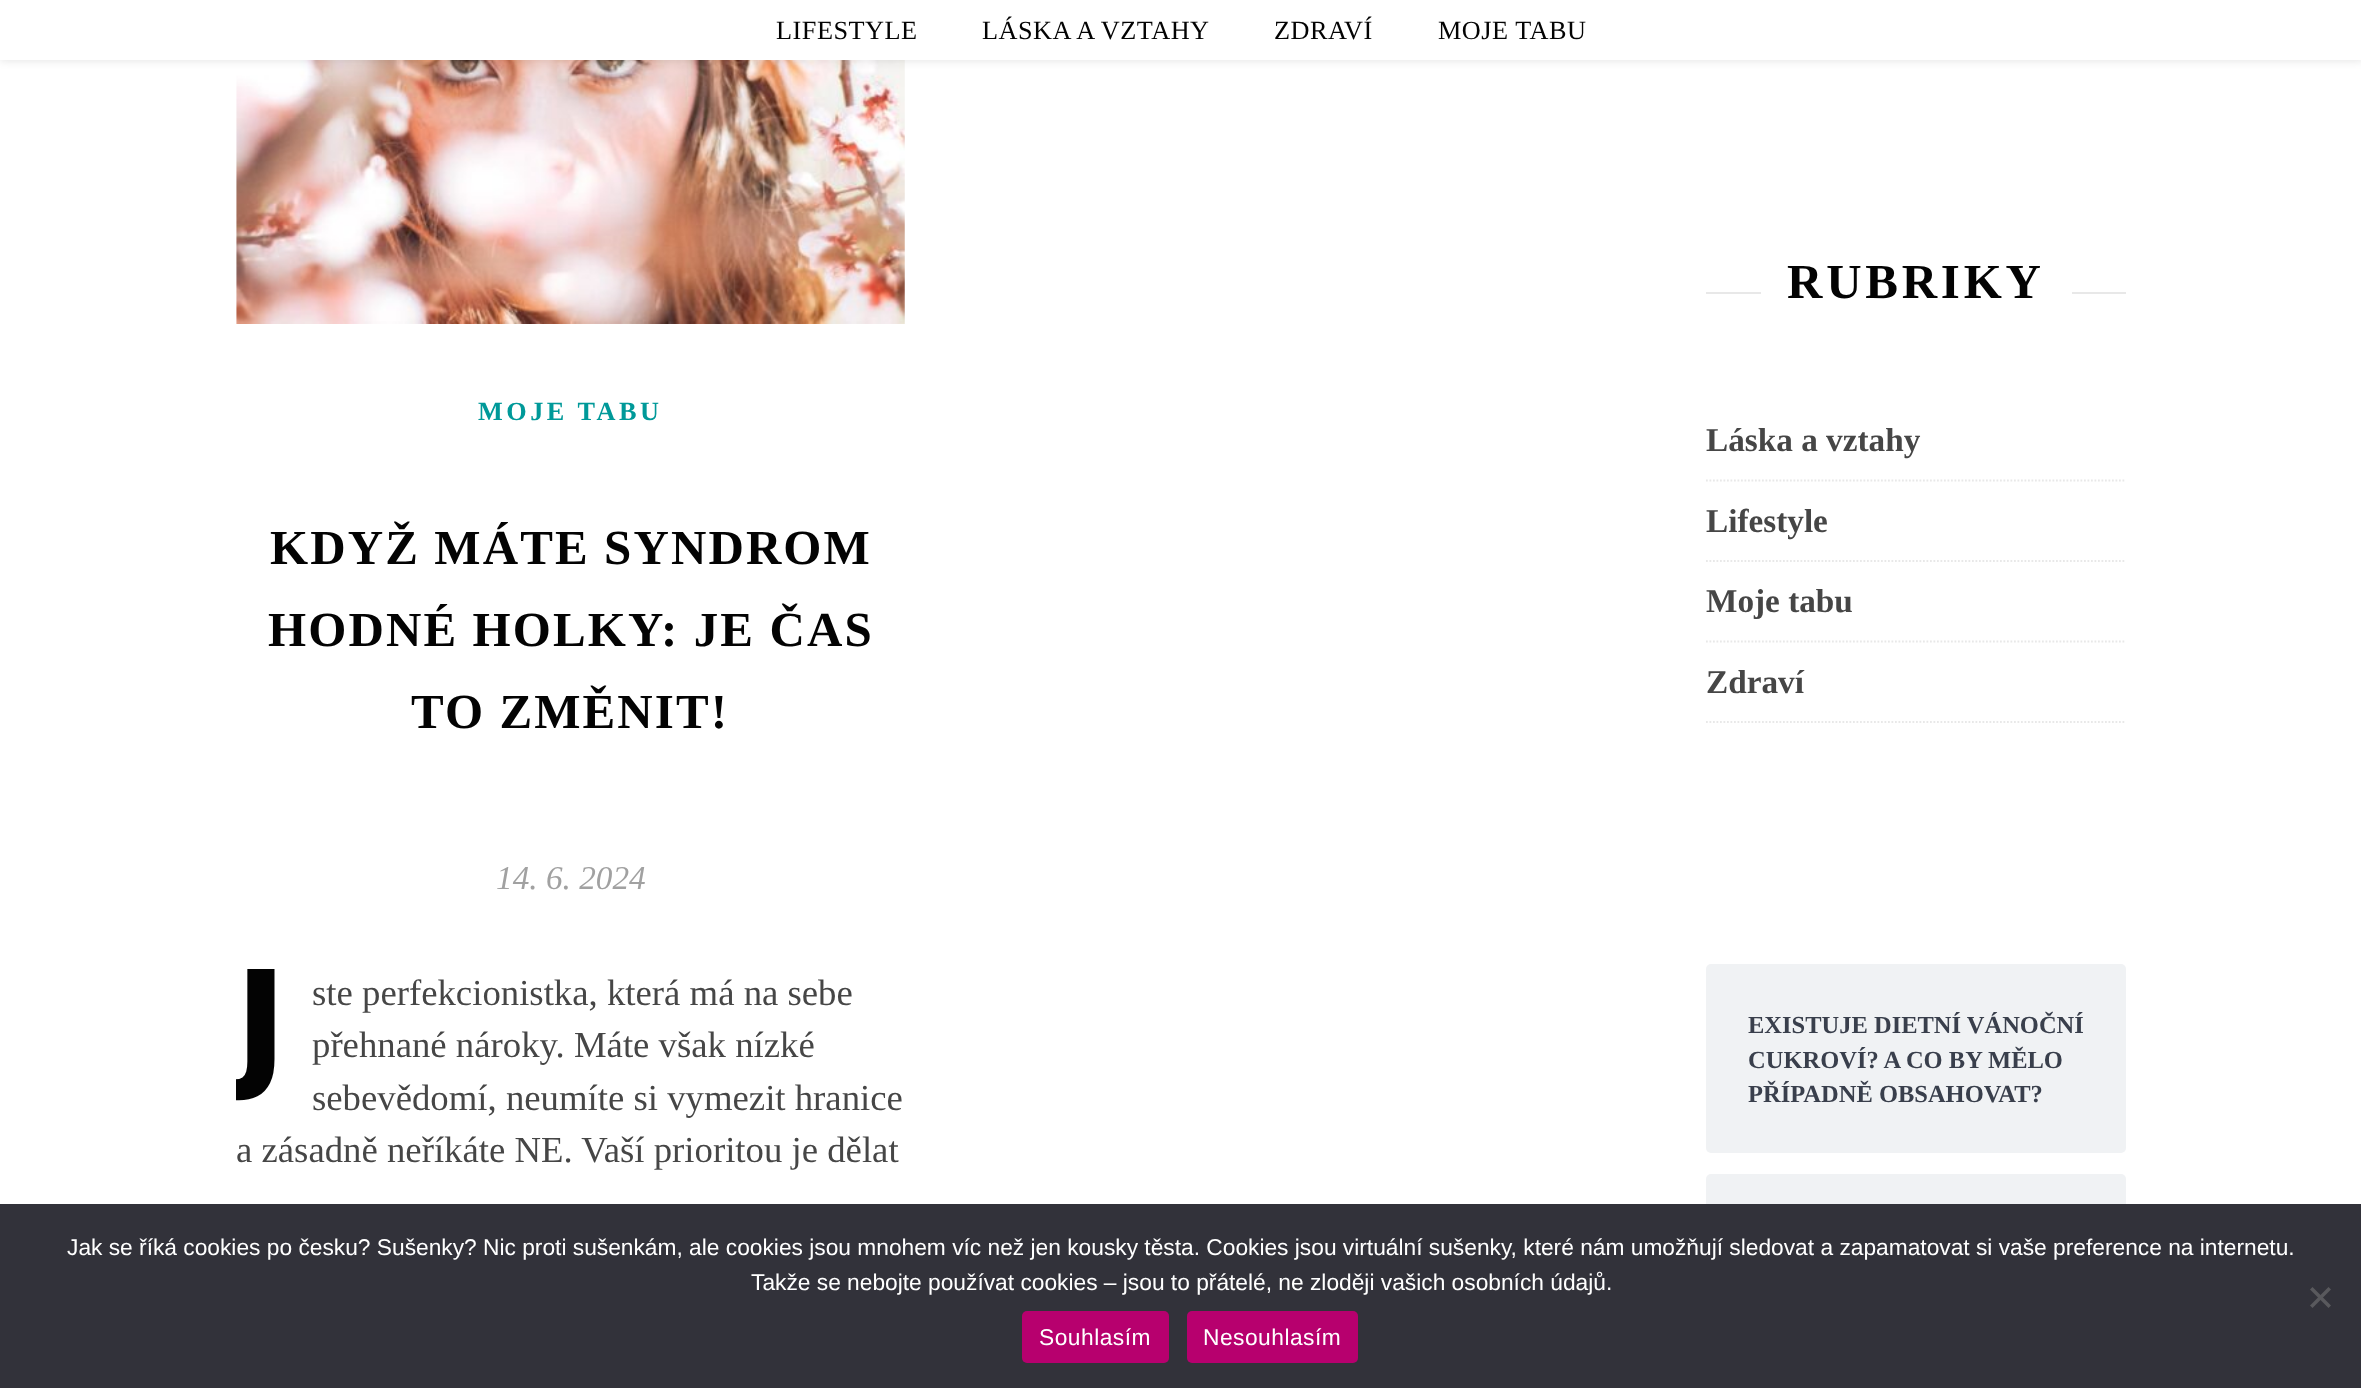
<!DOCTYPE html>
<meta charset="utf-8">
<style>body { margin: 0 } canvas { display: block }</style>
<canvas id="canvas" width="2361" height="1388"></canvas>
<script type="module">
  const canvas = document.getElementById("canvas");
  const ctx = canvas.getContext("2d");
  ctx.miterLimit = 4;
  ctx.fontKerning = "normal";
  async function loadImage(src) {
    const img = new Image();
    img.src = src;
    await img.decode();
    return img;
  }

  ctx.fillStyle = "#ffffff";
  ctx.fillRect(0, 0, 2361, 1388);
  ctx.drawImage(await loadImage("img1.png"), 236, 60, 669, 264);
  ctx.fillStyle = "rgba(0, 0, 0, 0.1)";
  ctx.filter = "blur(4.5px)";
  ctx.beginPath();
  ctx.rect(0, 2, 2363, 59);
  ctx.fill();
  ctx.filter = "none";
  ctx.fillStyle = "#ffffff";
  ctx.fillRect(0, 0, 2361, 60);
  ctx.letterSpacing = "0.5px";
  ctx.font = "26.25px Liberation Serif";
  ctx.fillStyle = "#030303";
  ctx.fillText("LIFESTYLE", 776, 39);
  ctx.fillText("LÁSKA A VZTAHY", 982, 39);
  ctx.fillText("ZDRAVÍ", 1274, 39);
  ctx.fillText("MOJE TABU", 1438, 39);
  ctx.letterSpacing = "3.5px";
  ctx.font = "bold 26.25px Liberation Serif";
  ctx.fillStyle = "#009999";
  ctx.fillText("MOJE TABU", 478, 420);
  ctx.letterSpacing = "2.1px";
  ctx.font = "bold 49px Liberation Serif";
  ctx.fillStyle = "#030303";
  ctx.fillText("KDYŽ MÁTE SYNDROM", 270, 564);
  ctx.fillText("HODNÉ HOLKY: JE ČAS", 268, 646);
  ctx.fillText("TO ZMĚNIT!", 411, 728);
  ctx.letterSpacing = "0px";
  ctx.font = "italic 33.25px Liberation Serif";
  ctx.fillStyle = "#a1a1a1";
  ctx.fillText("14. 6. 2024", 496, 889);
  ctx.save();
  ctx.beginPath();
  ctx.rect(236, 966, 669, 319);
  ctx.clip();
  ctx.font = "900 140px Noto Sans";
  ctx.fillStyle = "#030303";
  ctx.fillText("J", 236, 1069);
  ctx.restore();
  ctx.font = "36.75px Liberation Serif";
  ctx.fillStyle = "#464646";
  ctx.fillText("ste perfekcionistka, která má na sebe", 312, 1005);
  ctx.fillText("přehnané nároky. Máte však nízké", 312, 1057);
  ctx.fillText("sebevědomí, neumíte si vymezit hranice", 312, 1110);
  ctx.fillText("a zásadně neříkáte NE. Vaší prioritou je dělat", 236, 1162);
  ctx.fillStyle = "#e8e8e8";
  ctx.fillRect(1706, 292, 55, 2);
  ctx.letterSpacing = "3.75px";
  ctx.font = "bold 49px Liberation Serif";
  ctx.fillStyle = "#030303";
  ctx.fillText("RUBRIKY", 1787, 298);
  ctx.fillStyle = "#e8e8e8";
  ctx.fillRect(2072, 292, 54, 2);
  ctx.beginPath();
  ctx.moveTo(1706, 480.5);
  ctx.lineTo(2126, 480.5);
  ctx.strokeStyle = "#e8e8e8";
  ctx.lineWidth = 1.8;
  ctx.setLineDash([1.75, 1.75]);
  ctx.stroke();
  ctx.letterSpacing = "0px";
  ctx.font = "bold 33.25px Liberation Serif";
  ctx.fillStyle = "#464646";
  ctx.fillText("Láska a vztahy", 1706, 451);
  ctx.beginPath();
  ctx.moveTo(1706, 561);
  ctx.lineTo(2126, 561);
  ctx.stroke();
  ctx.fillText("Lifestyle", 1706, 532);
  ctx.beginPath();
  ctx.moveTo(1706, 641.5);
  ctx.lineTo(2126, 641.5);
  ctx.stroke();
  ctx.fillText("Moje tabu", 1706, 612);
  ctx.beginPath();
  ctx.moveTo(1706, 722);
  ctx.lineTo(2126, 722);
  ctx.stroke();
  ctx.fillText("Zdraví", 1706, 693);
  ctx.fillStyle = "#f0f2f4";
  ctx.beginPath();
  ctx.roundRect(1706, 964, 420, 189, 5);
  ctx.fill();
  ctx.font = "bold 24.5px Liberation Serif";
  ctx.fillStyle = "#393f4c";
  ctx.fillText("EXISTUJE DIETNÍ VÁNOČNÍ", 1748, 1033);
  ctx.fillText("CUKROVÍ? A CO BY MĚLO", 1748, 1068);
  ctx.fillText("PŘÍPADNĚ OBSAHOVAT?", 1748, 1102);
  ctx.fillStyle = "#f0f2f4";
  ctx.beginPath();
  ctx.roundRect(1706, 1174, 420, 188, 5);
  ctx.fill();
  ctx.fillStyle = "#32323a";
  ctx.fillRect(0, 1204, 2361, 184);
  ctx.font = "22.75px Liberation Sans";
  ctx.fillStyle = "#ffffff";
  ctx.fillText("Jak se říká cookies po česku? Sušenky? Nic proti sušenkám, ale cookies jsou mnohem víc než jen kousky těsta. Cookies jsou virtuální sušenky, které nám umožňují sledovat a zapamatovat si vaše preference na internetu.", 67, 1255);
  ctx.fillText("Takže se nebojte používat cookies – jsou to přátelé, ne zloději vašich osobních údajů.", 751, 1290);
  ctx.fillStyle = "#59595d";
  ctx.beginPath();
  ctx.moveTo(2328.5, 1287);
  ctx.lineTo(2331, 1289.5);
  ctx.lineTo(2312.5, 1308);
  ctx.lineTo(2310, 1305.5);
  ctx.closePath();
  ctx.fill();
  ctx.beginPath();
  ctx.moveTo(2310, 1289.5);
  ctx.lineTo(2312.5, 1287);
  ctx.lineTo(2331, 1305.5);
  ctx.lineTo(2328.5, 1308);
  ctx.closePath();
  ctx.fill();
  ctx.fillStyle = "#b7006e";
  ctx.beginPath();
  ctx.roundRect(1022, 1311, 147, 52, 5);
  ctx.fill();
  ctx.letterSpacing = "0.5px";
  ctx.fillStyle = "#ffffff";
  ctx.fillText("Souhlasím", 1039, 1345);
  ctx.fillStyle = "#b7006e";
  ctx.beginPath();
  ctx.roundRect(1187, 1311, 171, 52, 5);
  ctx.fill();
  ctx.fillStyle = "#ffffff";
  ctx.fillText("Nesouhlasím", 1203, 1345);
</script>
